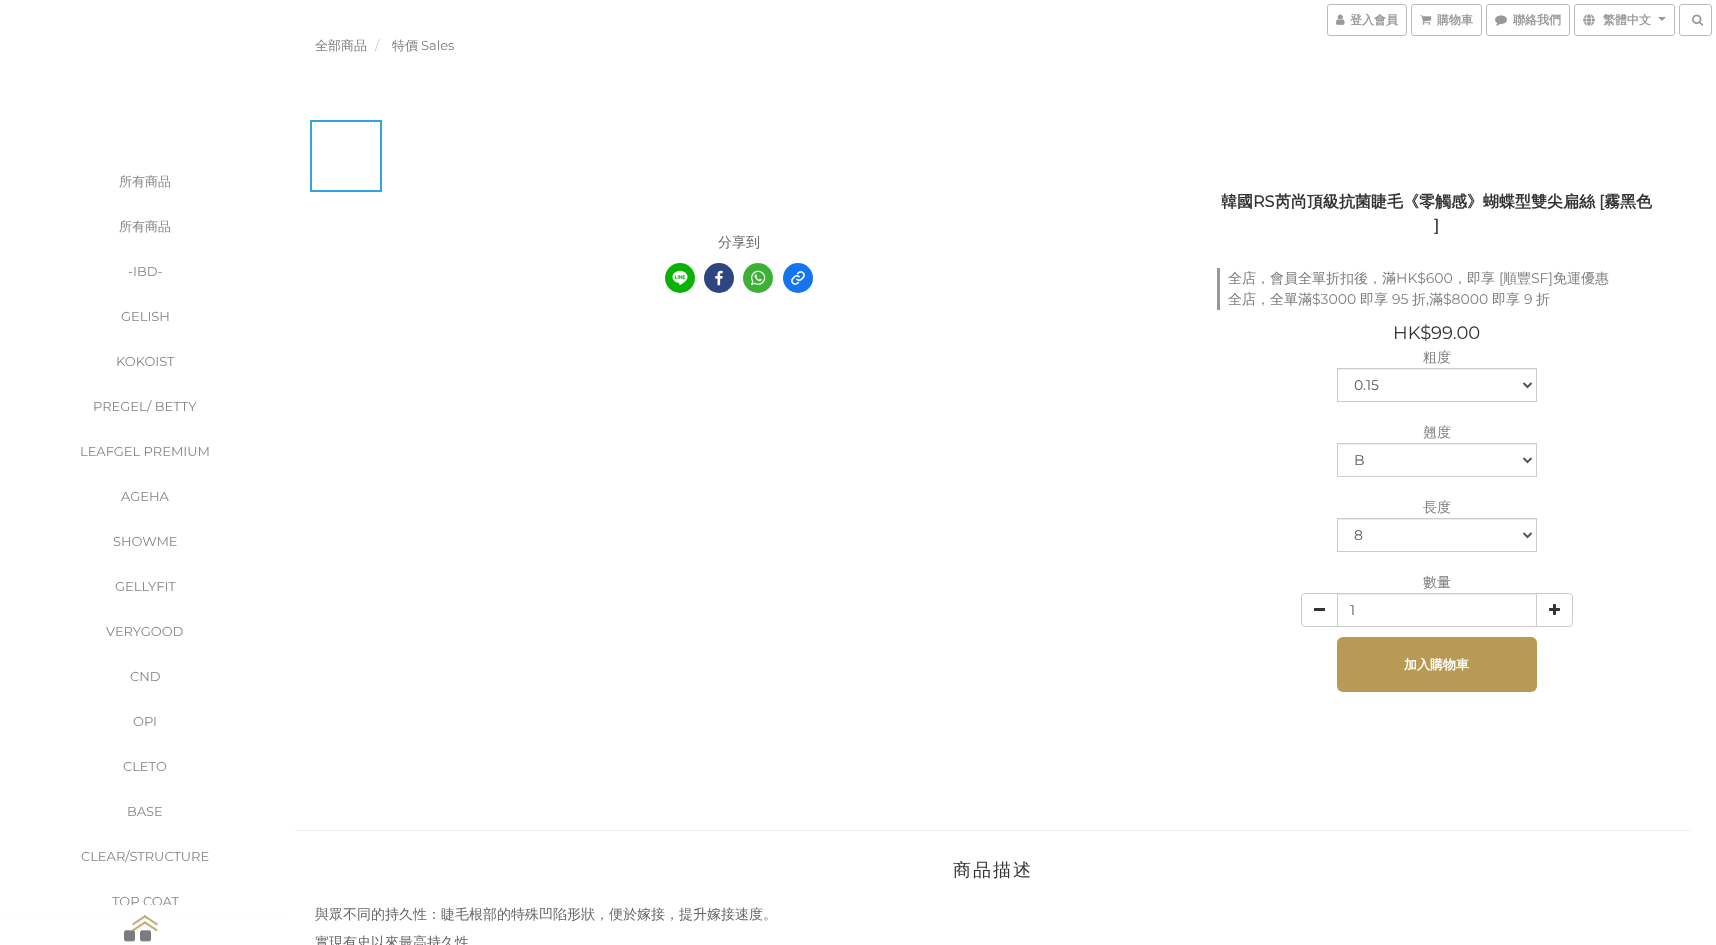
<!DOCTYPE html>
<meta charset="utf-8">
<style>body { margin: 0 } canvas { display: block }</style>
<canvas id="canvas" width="1716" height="945"></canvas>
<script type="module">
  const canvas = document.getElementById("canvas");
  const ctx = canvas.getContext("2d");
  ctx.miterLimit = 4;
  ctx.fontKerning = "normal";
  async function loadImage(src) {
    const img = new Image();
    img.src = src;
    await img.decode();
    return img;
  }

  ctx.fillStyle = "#ffffff";
  ctx.fillRect(0, 0, 1716, 945);
  ctx.beginPath();
  ctx.roundRect(1327.5, 4.5, 79, 31, 2.5);
  ctx.strokeStyle = "#bbbbbb";
  ctx.stroke();
  ctx.drawImage(await loadImage("img1.png"), 1336, 14, 9, 11);
  ctx.font = "bold 12px WenQuanYi Zen Hei";
  ctx.fillStyle = "#999999";
  ctx.fillText("登入會員", 1350, 24);
  ctx.beginPath();
  ctx.roundRect(1411.5, 4.5, 70, 31, 2.5);
  ctx.stroke();
  ctx.drawImage(await loadImage("img2.png"), 1420, 15, 12, 10);
  ctx.fillText("購物車", 1437, 24);
  ctx.beginPath();
  ctx.roundRect(1486.5, 4.5, 83, 31, 2.5);
  ctx.stroke();
  ctx.drawImage(await loadImage("img3.png"), 1495, 15, 12, 11);
  ctx.fillText("聯絡我們", 1513, 24);
  ctx.beginPath();
  ctx.roundRect(1574.5, 4.5, 100, 31, 2.5);
  ctx.stroke();
  ctx.drawImage(await loadImage("img4.png"), 1583, 14, 12, 12);
  ctx.fillText("繁體中文", 1603, 24);
  ctx.beginPath();
  ctx.moveTo(1658, 17);
  ctx.lineTo(1666, 17);
  ctx.lineTo(1662, 21);
  ctx.closePath();
  ctx.fill();
  ctx.beginPath();
  ctx.roundRect(1679.5, 4.5, 32, 31, 2.5);
  ctx.stroke();
  ctx.drawImage(await loadImage("img5.png"), 1692, 14, 11, 12);
  ctx.font = "500 13px WenQuanYi Zen Hei";
  ctx.fillStyle = "#848484";
  ctx.fillText("所有商品", 119, 186);
  ctx.fillText("所有商品", 119, 231);
  ctx.font = "13px Montserrat";
  ctx.fillText("-IBD-", 128, 276);
  ctx.fillText("GELISH", 121, 321);
  ctx.fillText("KOKOIST", 116, 366);
  ctx.fillText("PREGEL/ BETTY", 93, 411);
  ctx.fillText("LEAFGEL PREMIUM", 80, 456);
  ctx.fillText("AGEHA", 121, 501);
  ctx.fillText("SHOWME", 113, 546);
  ctx.fillText("GELLYFIT", 115, 591);
  ctx.fillText("VERYGOOD", 106, 636);
  ctx.fillText("CND", 130, 681);
  ctx.fillText("OPI", 133, 726);
  ctx.fillText("CLETO", 123, 771);
  ctx.fillText("BASE", 127, 816);
  ctx.fillText("CLEAR/STRUCTURE", 81, 861);
  ctx.fillText("TOP COAT", 112, 906);
  ctx.font = "500 13px WenQuanYi Zen Hei";
  ctx.fillStyle = "#7d7d7d";
  ctx.fillText("全部商品", 315, 50);
  ctx.font = "13px Montserrat";
  ctx.fillStyle = "#cccccc";
  ctx.fillText("/", 375, 50);
  ctx.font = "500 13px WenQuanYi Zen Hei";
  ctx.fillStyle = "#7d7d7d";
  ctx.fillText("特價", 392, 50);
  ctx.font = "13px Montserrat";
  ctx.fillText("Sales", 421, 50);
  ctx.strokeStyle = "#30a4e1";
  ctx.lineWidth = 2;
  ctx.strokeRect(311, 121, 70, 70);
  ctx.font = "500 14px WenQuanYi Zen Hei";
  ctx.fillStyle = "#666666";
  ctx.fillText("分享到", 718, 247);
  ctx.fillStyle = "#09b305";
  ctx.beginPath();
  ctx.arc(680, 278, 15, 0, Math.PI * 2);
  ctx.fill();
  ctx.drawImage(await loadImage("img6.png"), 672, 270, 16, 16);
  ctx.fillStyle = "#2d4682";
  ctx.beginPath();
  ctx.arc(719, 278, 15, 0, Math.PI * 2);
  ctx.fill();
  ctx.drawImage(await loadImage("img7.png"), 715, 270, 8, 16);
  ctx.fillStyle = "#3cb136";
  ctx.beginPath();
  ctx.arc(758, 278, 15, 0, Math.PI * 2);
  ctx.fill();
  ctx.drawImage(await loadImage("img8.png"), 750, 270, 16, 16);
  ctx.fillStyle = "#1575f0";
  ctx.beginPath();
  ctx.arc(798, 278, 15, 0, Math.PI * 2);
  ctx.fill();
  ctx.drawImage(await loadImage("img9.png"), 791, 271, 14, 14);
  ctx.font = "bold 16px WenQuanYi Zen Hei";
  ctx.fillStyle = "#333333";
  ctx.fillText("韓國", 1221, 207);
  ctx.font = "bold 16px Montserrat";
  ctx.fillText("RS", 1253, 207);
  ctx.font = "bold 16px WenQuanYi Zen Hei";
  ctx.fillText("芮尚頂級抗菌睫毛《零觸感》蝴蝶型雙尖扁絲", 1275, 207);
  ctx.font = "bold 16px Montserrat";
  ctx.fillText("[", 1599, 207);
  ctx.font = "bold 16px WenQuanYi Zen Hei";
  ctx.fillText("霧黑色", 1604, 207);
  ctx.font = "bold 16px Montserrat";
  ctx.fillText("]", 1434, 231);
  ctx.fillStyle = "#999899";
  ctx.fillRect(1217, 268, 3, 42);
  ctx.font = "500 14px WenQuanYi Zen Hei";
  ctx.fillStyle = "#7d7d7d";
  ctx.fillText("全店，會員全單折扣後，滿", 1228, 283);
  ctx.font = "14px Montserrat";
  ctx.fillText("HK$600", 1396, 283);
  ctx.font = "500 14px WenQuanYi Zen Hei";
  ctx.fillText("，即享", 1453, 283);
  ctx.font = "14px Montserrat";
  ctx.fillText("[", 1499, 283);
  ctx.font = "500 14px WenQuanYi Zen Hei";
  ctx.fillText("順豐", 1503, 283);
  ctx.font = "14px Montserrat";
  ctx.fillText("SF]", 1531, 283);
  ctx.font = "500 14px WenQuanYi Zen Hei";
  ctx.fillText("免運優惠", 1553, 283);
  ctx.fillText("全店，全單滿", 1228, 304);
  ctx.font = "14px Montserrat";
  ctx.fillText("$3000", 1312, 304);
  ctx.font = "500 14px WenQuanYi Zen Hei";
  ctx.fillText("即享", 1360, 304);
  ctx.font = "14px Montserrat";
  ctx.fillText("95", 1392, 304);
  ctx.font = "500 14px WenQuanYi Zen Hei";
  ctx.fillText("折", 1412, 304);
  ctx.font = "14px Montserrat";
  ctx.fillText(",", 1426, 304);
  ctx.font = "500 14px WenQuanYi Zen Hei";
  ctx.fillText("滿", 1429, 304);
  ctx.font = "14px Montserrat";
  ctx.fillText("$8000", 1443, 304);
  ctx.font = "500 14px WenQuanYi Zen Hei";
  ctx.fillText("即享", 1492, 304);
  ctx.font = "14px Montserrat";
  ctx.fillText("9", 1524, 304);
  ctx.font = "500 14px WenQuanYi Zen Hei";
  ctx.fillText("折", 1536, 304);
  ctx.font = "18px Montserrat";
  ctx.fillStyle = "#333333";
  ctx.fillText("HK$99.00", 1393, 339);
  ctx.font = "500 14px WenQuanYi Zen Hei";
  ctx.fillStyle = "#7d7d7d";
  ctx.fillText("粗度", 1423, 362);
  ctx.fillStyle = "#ececec";
  ctx.fillRect(1338, 369, 198, 1);
  ctx.strokeStyle = "#cccccc";
  ctx.lineWidth = 1;
  ctx.strokeRect(1337.5, 368.5, 199, 33);
  ctx.beginPath();
  ctx.moveTo(1523.5, 383);
  ctx.lineTo(1527.5, 387);
  ctx.lineTo(1531.5, 383);
  ctx.strokeStyle = "#555555";
  ctx.lineWidth = 2;
  ctx.stroke();
  ctx.font = "14px Montserrat";
  ctx.fillStyle = "#555555";
  ctx.fillText("0.15", 1354, 390);
  ctx.font = "500 14px WenQuanYi Zen Hei";
  ctx.fillStyle = "#7d7d7d";
  ctx.fillText("翹度", 1423, 437);
  ctx.fillStyle = "#ececec";
  ctx.fillRect(1338, 444, 198, 1);
  ctx.strokeStyle = "#cccccc";
  ctx.lineWidth = 1;
  ctx.strokeRect(1337.5, 443.5, 199, 33);
  ctx.beginPath();
  ctx.moveTo(1523.5, 458);
  ctx.lineTo(1527.5, 462);
  ctx.lineTo(1531.5, 458);
  ctx.strokeStyle = "#555555";
  ctx.lineWidth = 2;
  ctx.stroke();
  ctx.font = "14px Montserrat";
  ctx.fillStyle = "#555555";
  ctx.fillText("B", 1354, 465);
  ctx.font = "500 14px WenQuanYi Zen Hei";
  ctx.fillStyle = "#7d7d7d";
  ctx.fillText("長度", 1423, 512);
  ctx.fillStyle = "#ececec";
  ctx.fillRect(1338, 519, 198, 1);
  ctx.strokeStyle = "#cccccc";
  ctx.lineWidth = 1;
  ctx.strokeRect(1337.5, 518.5, 199, 33);
  ctx.beginPath();
  ctx.moveTo(1523.5, 533);
  ctx.lineTo(1527.5, 537);
  ctx.lineTo(1531.5, 533);
  ctx.strokeStyle = "#555555";
  ctx.lineWidth = 2;
  ctx.stroke();
  ctx.font = "14px Montserrat";
  ctx.fillStyle = "#555555";
  ctx.fillText("8", 1354, 540);
  ctx.font = "500 14px WenQuanYi Zen Hei";
  ctx.fillStyle = "#7d7d7d";
  ctx.fillText("數量", 1423, 587);
  ctx.beginPath();
  ctx.roundRect(1301.5, 593.5, 36, 33, [3.5, 0, 0, 3.5]);
  ctx.strokeStyle = "#cccccc";
  ctx.lineWidth = 1;
  ctx.stroke();
  ctx.fillStyle = "#333333";
  ctx.fillRect(1314, 608, 11, 3);
  ctx.fillStyle = "#ececec";
  ctx.fillRect(1338, 594, 198, 1);
  ctx.strokeRect(1337.5, 593.5, 199, 33);
  ctx.font = "14px Montserrat";
  ctx.fillStyle = "#555555";
  ctx.fillText("1", 1350, 615);
  ctx.fillStyle = "#ffffff";
  ctx.beginPath();
  ctx.roundRect(1536.5, 593.5, 36, 33, [0, 3.5, 3.5, 0]);
  ctx.fill();
  ctx.stroke();
  ctx.drawImage(await loadImage("img10.png"), 1549, 604, 11, 11);
  ctx.fillStyle = "#b89955";
  ctx.beginPath();
  ctx.roundRect(1337, 637, 200, 55, 6);
  ctx.fill();
  ctx.font = "bold 13px WenQuanYi Zen Hei";
  ctx.fillStyle = "#ffffff";
  ctx.fillText("加入購物車", 1404, 669);
  ctx.fillStyle = "#eeeeee";
  ctx.fillRect(295, 830, 1396, 1);
  ctx.letterSpacing = "2px";
  ctx.font = "500 18px WenQuanYi Zen Hei";
  ctx.fillStyle = "#333333";
  ctx.fillText("商品描述", 953, 876);
  ctx.letterSpacing = "0px";
  ctx.font = "500 14px WenQuanYi Zen Hei";
  ctx.fillStyle = "#666666";
  ctx.fillText("與眾不同的持久性：睫毛根部的特殊凹陷形狀，便於嫁接，提升嫁接速度。", 315, 919);
  ctx.fillText("實現有史以來最高持久性", 315, 947);
  ctx.fillStyle = "#f8f8f8";
  ctx.fillRect(0, 915, 290, 1);
  ctx.drawImage(await loadImage("img11.png"), 0, 915, 290, 30);
  ctx.fillStyle = "#ffffff";
  ctx.fillRect(114, 905, 62, 2);
  ctx.drawImage(await loadImage("img12.png"), 124, 930, 34, 12);
</script>
